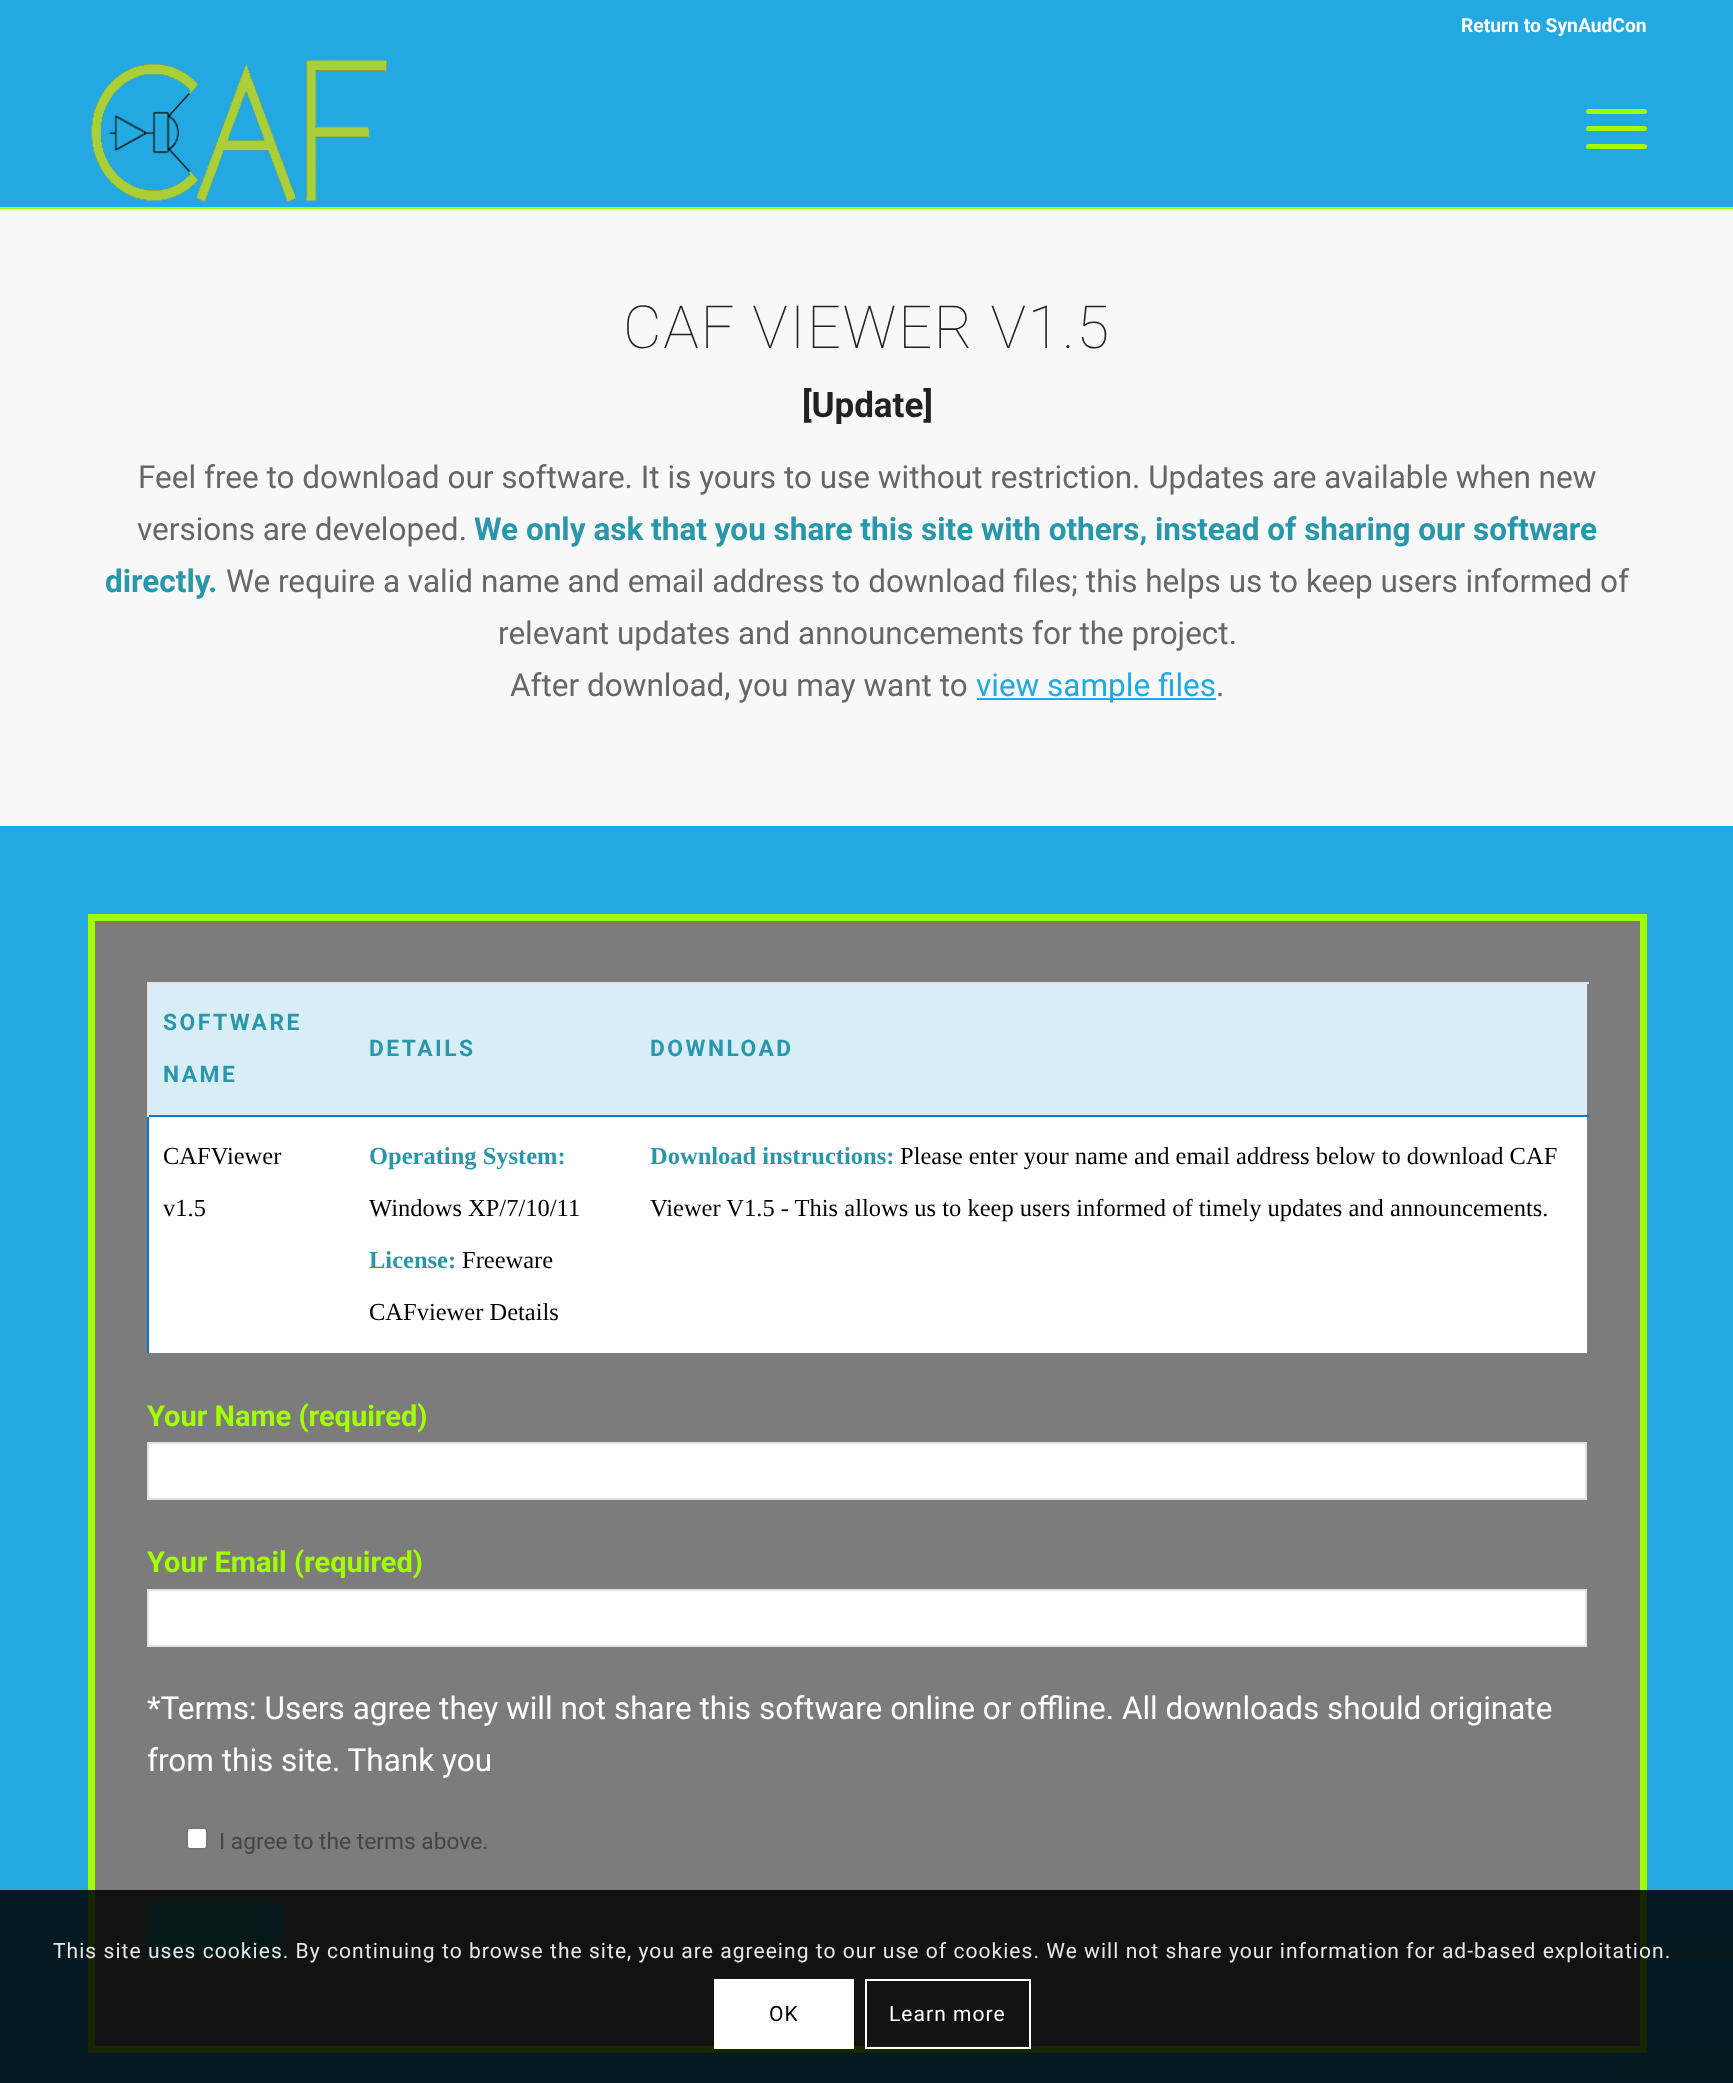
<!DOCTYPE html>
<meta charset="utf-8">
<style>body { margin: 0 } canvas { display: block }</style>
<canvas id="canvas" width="1733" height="2083"></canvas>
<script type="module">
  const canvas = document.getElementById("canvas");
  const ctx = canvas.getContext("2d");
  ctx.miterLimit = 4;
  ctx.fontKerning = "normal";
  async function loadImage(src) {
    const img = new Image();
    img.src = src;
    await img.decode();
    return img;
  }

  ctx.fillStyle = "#23a8e1";
  ctx.fillRect(0, 0, 1733, 2083);
  ctx.fillStyle = "#a2ff00";
  ctx.fillRect(0, 207, 1733, 2);
  ctx.font = "bold 19.25px Roboto";
  ctx.fillStyle = "#ffffff";
  ctx.fillText("Return to SynAudCon", 1461, 32);
  ctx.drawImage(await loadImage("img1.png"), 90, 59, 298, 144);
  ctx.fillStyle = "#a2ff00";
  ctx.beginPath();
  ctx.roundRect(1586, 126, 61, 5, 2.5);
  ctx.fill();
  ctx.beginPath();
  ctx.roundRect(1586, 109, 61, 5, 2.5);
  ctx.fill();
  ctx.beginPath();
  ctx.roundRect(1586, 144, 61, 5, 2.5);
  ctx.fill();
  ctx.fillStyle = "#f8f8f8";
  ctx.fillRect(0, 209, 1733, 617);
  ctx.letterSpacing = "1.75px";
  ctx.font = "100 59.5px Roboto";
  ctx.fillStyle = "#222222";
  ctx.fillText("CAF VIEWER V1.5", 623, 348);
  ctx.letterSpacing = "0px";
  ctx.font = "bold 35px Roboto";
  ctx.fillText("[Update]", 802, 417);
  ctx.font = "31.5px Roboto";
  ctx.fillStyle = "#666666";
  ctx.fillText("Feel free to download our software. It is yours to use without restriction. Updates are available when new", 138, 488);
  ctx.fillText("versions are developed.", 137, 540);
  ctx.font = "bold 31.5px Roboto";
  ctx.fillStyle = "#2997ab";
  ctx.fillText("We only ask that you share this site with others, instead of sharing our software", 474, 540);
  ctx.fillText("directly.", 105, 592);
  ctx.font = "31.5px Roboto";
  ctx.fillStyle = "#666666";
  ctx.fillText("We require a valid name and email address to download files; this helps us to keep users informed of", 226, 592);
  ctx.fillText("relevant updates and announcements for the project.", 498, 644);
  ctx.fillText("After download, you may want to", 510, 696);
  ctx.fillStyle = "#23a9e1";
  ctx.fillRect(977, 698, 239, 2);
  ctx.fillText("view sample files", 976, 696);
  ctx.fillStyle = "#666666";
  ctx.fillText(".", 1216, 696);
  ctx.save();
  ctx.beginPath();
  ctx.moveTo(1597, 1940);
  ctx.lineTo(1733, 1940);
  ctx.lineTo(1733, 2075);
  ctx.lineTo(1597, 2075);
  ctx.closePath();
  ctx.moveTo(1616, 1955);
  ctx.lineTo(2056, 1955);
  ctx.bezierCurveTo(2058, 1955, 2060, 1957, 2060, 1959);
  ctx.lineTo(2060, 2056);
  ctx.bezierCurveTo(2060, 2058, 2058, 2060, 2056, 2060);
  ctx.lineTo(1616, 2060);
  ctx.bezierCurveTo(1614, 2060, 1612, 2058, 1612, 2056);
  ctx.lineTo(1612, 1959);
  ctx.bezierCurveTo(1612, 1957, 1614, 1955, 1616, 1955);
  ctx.closePath();
  ctx.clip("evenodd");
  ctx.fillStyle = "#808080";
  ctx.filter = "blur(4.5px)";
  ctx.beginPath();
  ctx.roundRect(1612, 1955, 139, 105, 4);
  ctx.fill();
  ctx.filter = "none";
  ctx.restore();
  ctx.fillStyle = "#7c7c7c";
  ctx.beginPath();
  ctx.rect(91.5, 917.5, 1552, 1132);
  ctx.fill();
  ctx.strokeStyle = "#a2ff00";
  ctx.lineWidth = 7;
  ctx.stroke();
  ctx.fillStyle = "#ffffff";
  ctx.fillRect(149, 1117, 1438, 236);
  ctx.fillStyle = "#d9edf7";
  ctx.fillRect(149, 984, 1438, 131);
  ctx.fillStyle = "#e1e1e1";
  ctx.fillRect(147, 982, 1442, 2);
  ctx.fillStyle = "#0079d0";
  ctx.fillRect(147, 1115, 1442, 2);
  ctx.fillRect(147, 1115, 2, 238);
  ctx.fillStyle = "#e1e1e1";
  ctx.fillRect(147, 982, 2, 135);
  ctx.letterSpacing = "2.5px";
  ctx.font = "bold 22.75px Roboto";
  ctx.fillStyle = "#2997ab";
  ctx.fillText("SOFTWARE", 163, 1030);
  ctx.fillText("NAME", 163, 1082);
  ctx.fillText("DETAILS", 369, 1056);
  ctx.fillText("DOWNLOAD", 650, 1056);
  ctx.letterSpacing = "0px";
  ctx.font = "24.5px Liberation Serif";
  ctx.fillStyle = "#000000";
  ctx.fillText("CAFViewer", 163, 1164);
  ctx.fillText("v1.5", 163, 1216);
  ctx.font = "bold 24.5px Liberation Serif";
  ctx.fillStyle = "#2997ab";
  ctx.fillText("Operating System:", 369, 1164);
  ctx.font = "24.5px Liberation Serif";
  ctx.fillStyle = "#000000";
  ctx.fillText("Windows XP/7/10/11", 369, 1216);
  ctx.font = "bold 24.5px Liberation Serif";
  ctx.fillStyle = "#2997ab";
  ctx.fillText("License:", 369, 1268);
  ctx.font = "24.5px Liberation Serif";
  ctx.fillStyle = "#000000";
  ctx.fillText("Freeware", 462, 1268);
  ctx.fillText("CAFviewer Details", 369, 1320);
  ctx.font = "bold 24.5px Liberation Serif";
  ctx.fillStyle = "#2997ab";
  ctx.fillText("Download instructions:", 650, 1164);
  ctx.font = "24.5px Liberation Serif";
  ctx.fillStyle = "#000000";
  ctx.fillText("Please enter your name and email address below to download CAF", 900, 1164);
  ctx.fillText("Viewer V1.5 - This allows us to keep users informed of timely updates and announcements.", 650, 1216);
  ctx.font = "bold 29px Roboto";
  ctx.fillStyle = "#a2ff00";
  ctx.fillText("Your Name (required)", 147, 1426);
  ctx.fillStyle = "#ffffff";
  ctx.beginPath();
  ctx.rect(148, 1443, 1438, 56);
  ctx.fill();
  ctx.strokeStyle = "#e1e1e1";
  ctx.lineWidth = 2;
  ctx.stroke();
  ctx.fillStyle = "#a2ff00";
  ctx.fillText("Your Email (required)", 147, 1572);
  ctx.fillStyle = "#ffffff";
  ctx.beginPath();
  ctx.rect(148, 1590, 1438, 56);
  ctx.fill();
  ctx.stroke();
  ctx.font = "31.5px Roboto";
  ctx.fillText("*Terms: Users agree they will not share this software online or offline. All downloads should originate", 147, 1719);
  ctx.fillText("from this site. Thank you", 147, 1771);
  ctx.beginPath();
  ctx.roundRect(187, 1828, 20, 21, 3);
  ctx.fill();
  ctx.strokeStyle = "#767676";
  ctx.stroke();
  ctx.font = "22.75px Roboto";
  ctx.fillStyle = "#444444";
  ctx.fillText("I agree to the terms above.", 219, 1849);
  ctx.fillStyle = "#2997ab";
  ctx.fillRect(147, 1901, 135, 57);
  ctx.fillStyle = "rgba(0, 0, 0, 0.85)";
  ctx.fillRect(0, 1890, 1733, 193);
  ctx.letterSpacing = "1.05px";
  ctx.font = "21px Roboto";
  ctx.fillStyle = "#e7e7e7";
  ctx.fillText("This site uses cookies. By continuing to browse the site, you are agreeing to our use of cookies. We will not share your information for ad-based exploitation.", 53, 1958);
  ctx.fillStyle = "#ffffff";
  ctx.fillRect(714, 1979, 140, 70);
  ctx.fillStyle = "#000000";
  ctx.fillText("OK", 769, 2021);
  ctx.strokeStyle = "#ffffff";
  ctx.strokeRect(866, 1980, 164, 68);
  ctx.fillStyle = "#ffffff";
  ctx.fillText("Learn more", 889, 2021);
</script>
